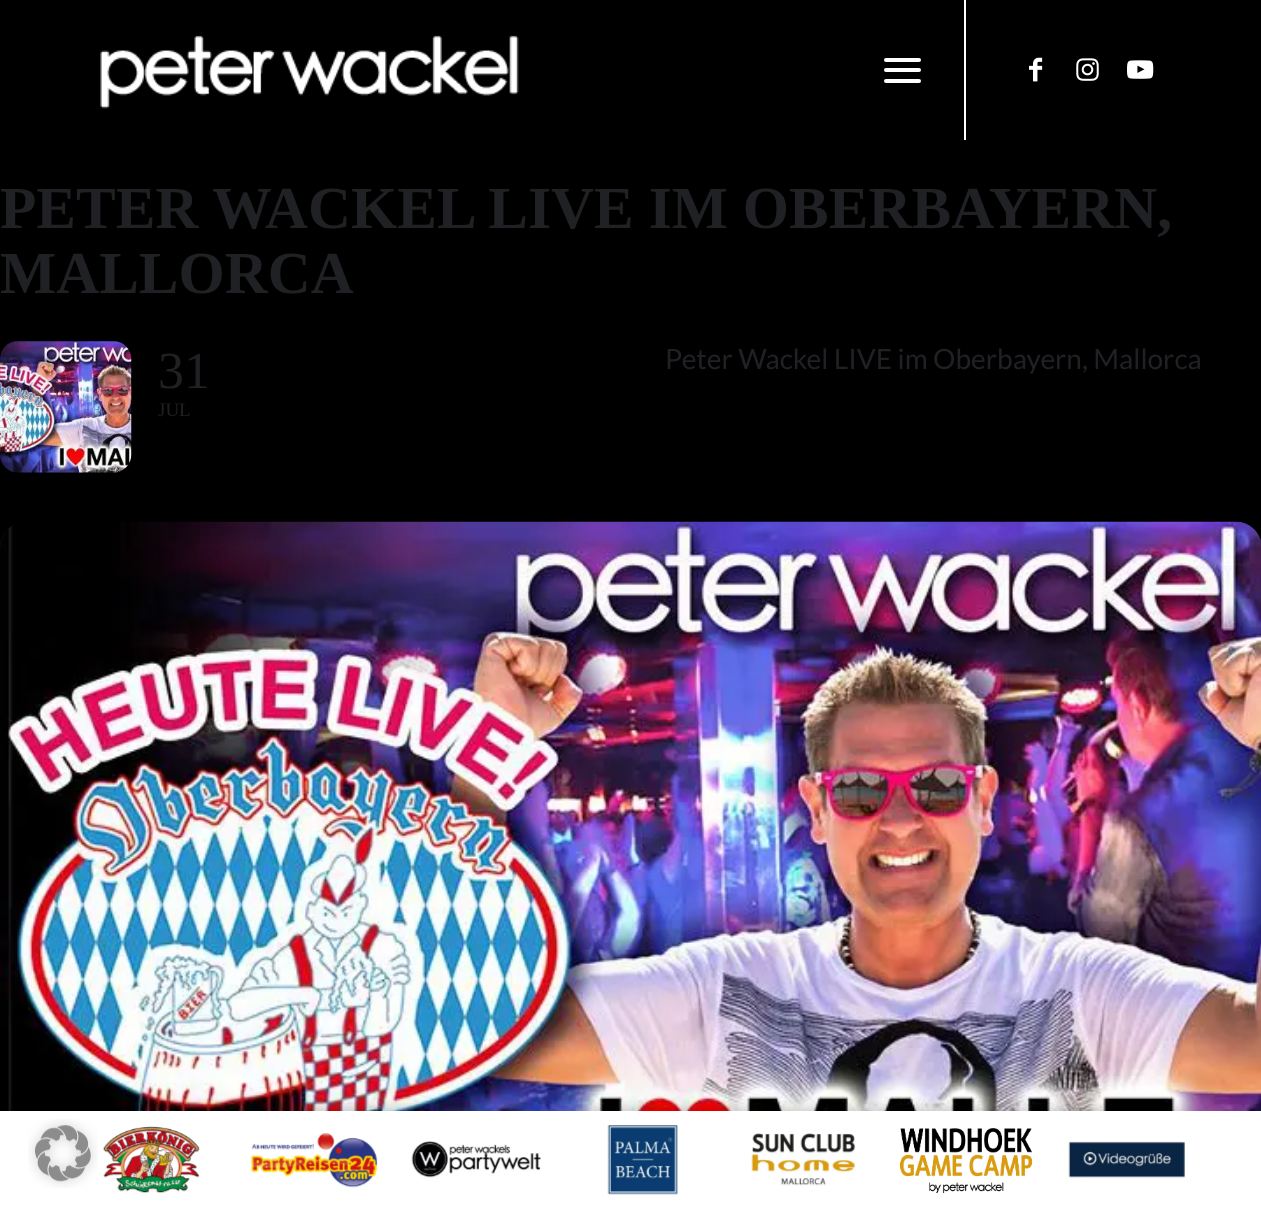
<!DOCTYPE html>
<meta charset="utf-8">
<style>body { margin: 0 } canvas { display: block }</style>
<canvas id="canvas" width="1261" height="1215"></canvas>
<script type="module">
  const canvas = document.getElementById("canvas");
  const ctx = canvas.getContext("2d");
  ctx.miterLimit = 4;
  ctx.fontKerning = "normal";
  async function loadImage(src) {
    const img = new Image();
    img.src = src;
    await img.decode();
    return img;
  }

  ctx.fillStyle = "#000000";
  ctx.fillRect(0, 0, 1261, 1215);
  ctx.drawImage(await loadImage("img1.png"), 100, 35, 419, 74);
  ctx.fillStyle = "#ffffff";
  ctx.fillRect(964, 0, 2, 140);
  ctx.beginPath();
  ctx.roundRect(884, 68, 37, 4, 2);
  ctx.fill();
  ctx.beginPath();
  ctx.roundRect(884, 58, 37, 4, 2);
  ctx.fill();
  ctx.beginPath();
  ctx.roundRect(884, 79, 37, 4, 2);
  ctx.fill();
  ctx.drawImage(await loadImage("img2.png"), 1029, 57, 14, 25);
  ctx.drawImage(await loadImage("img3.png"), 1076, 58, 23, 23);
  ctx.drawImage(await loadImage("img4.png"), 1127, 60, 27, 19);
  ctx.font = "bold 59.5px Liberation Serif";
  ctx.fillStyle = "#202124";
  ctx.fillText("PETER WACKEL LIVE IM OBERBAYERN,", 0, 228);
  ctx.fillText("MALLORCA", 0, 293);
  ctx.drawImage(await loadImage("img5.png"), 0, 341, 132, 132);
  ctx.font = "52px Liberation Serif";
  ctx.fillText("31", 158, 388);
  ctx.font = "19px Liberation Serif";
  ctx.fillText("JUL", 158, 416);
  ctx.font = "28px Lato";
  ctx.fillText("Peter Wackel LIVE im Oberbayern, Mallorca", 665, 369);
  ctx.fillStyle = "#333333";
  ctx.beginPath();
  ctx.roundRect(0, 522, 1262, 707, 26);
  ctx.fill();
  ctx.drawImage(await loadImage("img6.png"), 0, 521, 1261, 590);
  ctx.fillStyle = "rgba(0, 0, 0, 0.36)";
  ctx.filter = "blur(9px)";
  ctx.beginPath();
  ctx.rect(4, 1113, 1254, 98);
  ctx.fill();
  ctx.filter = "none";
  ctx.fillStyle = "#ffffff";
  ctx.fillRect(0, 1111, 1261, 104);
  ctx.drawImage(await loadImage("img7.png"), 103, 1126, 97, 67);
  ctx.drawImage(await loadImage("img8.png"), 250, 1133, 128, 55);
  ctx.drawImage(await loadImage("img9.png"), 411, 1141, 130, 37);
  ctx.drawImage(await loadImage("img10.png"), 607, 1125, 71, 70);
  ctx.drawImage(await loadImage("img11.png"), 751, 1133, 105, 53);
  ctx.drawImage(await loadImage("img12.png"), 899, 1128, 134, 65);
  ctx.drawImage(await loadImage("img13.png"), 1068, 1141, 118, 37);
  ctx.drawImage(await loadImage("img14.png"), 28, 1119, 70, 69);
</script>
